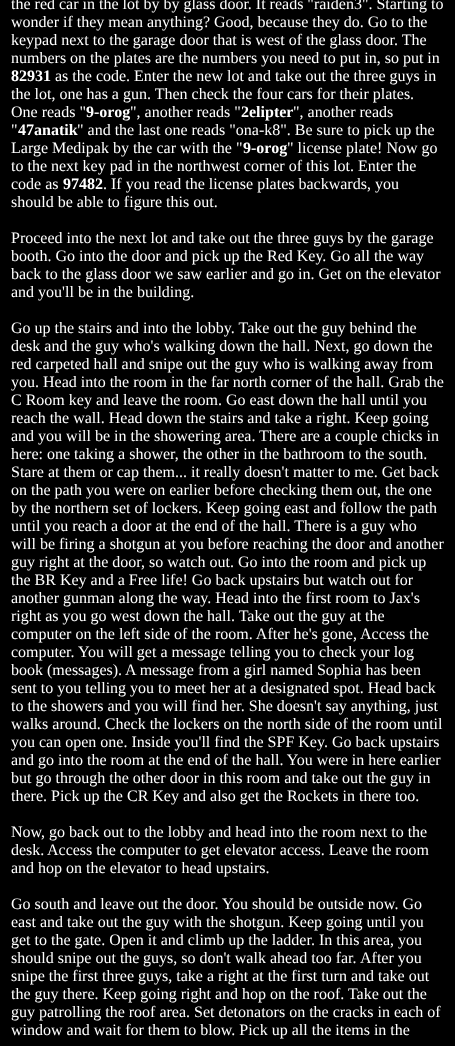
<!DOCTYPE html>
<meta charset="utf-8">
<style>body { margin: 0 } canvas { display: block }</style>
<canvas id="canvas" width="455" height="1046"></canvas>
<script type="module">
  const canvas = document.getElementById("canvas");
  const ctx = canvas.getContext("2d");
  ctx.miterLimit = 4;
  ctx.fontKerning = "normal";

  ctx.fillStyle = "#000000";
  ctx.fillRect(0, 0, 455, 1046);
  ctx.font = "16px Liberation Serif";
  ctx.fillStyle = "#ffffff";
  ctx.fillText("the red car in the lot by by glass door. It reads \"raiden3\". Starting to", 11, 9);
  ctx.fillText("wonder if they mean anything? Good, because they do. Go to the", 11, 27);
  ctx.fillText("keypad next to the garage door that is west of the glass door. The", 11, 45);
  ctx.fillText("numbers on the plates are the numbers you need to put in, so put in", 11, 63);
  ctx.font = "bold 16px Liberation Serif";
  ctx.fillText("82931", 11, 81);
  ctx.font = "16px Liberation Serif";
  ctx.fillText("as the code. Enter the new lot and take out the three guys in", 55, 81);
  ctx.fillText("the lot, one has a gun. Then check the four cars for their plates.", 11, 99);
  ctx.fillText("One reads \"", 11, 117);
  ctx.font = "bold 16px Liberation Serif";
  ctx.fillText("9-orog", 86, 117);
  ctx.font = "16px Liberation Serif";
  ctx.fillText("\", another reads \"", 130, 117);
  ctx.font = "bold 16px Liberation Serif";
  ctx.fillText("2elipter", 241, 117);
  ctx.font = "16px Liberation Serif";
  ctx.fillText("\", another reads", 293, 117);
  ctx.fillText("\"", 11, 135);
  ctx.font = "bold 16px Liberation Serif";
  ctx.fillText("47anatik", 18, 135);
  ctx.font = "16px Liberation Serif";
  ctx.fillText("\" and the last one reads \"ona-k8\". Be sure to pick up the", 77, 135);
  ctx.fillText("Large Medipak by the car with the \"", 11, 153);
  ctx.font = "bold 16px Liberation Serif";
  ctx.fillText("9-orog", 243, 153);
  ctx.font = "16px Liberation Serif";
  ctx.fillText("\" license plate! Now go", 287, 153);
  ctx.fillText("to the next key pad in the northwest corner of this lot. Enter the", 11, 171);
  ctx.fillText("code as", 11, 189);
  ctx.font = "bold 16px Liberation Serif";
  ctx.fillText("97482", 63, 189);
  ctx.font = "16px Liberation Serif";
  ctx.fillText(". If you read the license plates backwards, you", 103, 189);
  ctx.fillText("should be able to figure this out.", 11, 207);
  ctx.fillText("Proceed into the next lot and take out the three guys by the garage", 11, 243);
  ctx.fillText("booth. Go into the door and pick up the Red Key. Go all the way", 11, 261);
  ctx.fillText("back to the glass door we saw earlier and go in. Get on the elevator", 11, 279);
  ctx.fillText("and you'll be in the building.", 11, 297);
  ctx.fillText("Go up the stairs and into the lobby. Take out the guy behind the", 11, 333);
  ctx.fillText("desk and the guy who's walking down the hall. Next, go down the", 11, 351);
  ctx.fillText("red carpeted hall and snipe out the guy who is walking away from", 11, 369);
  ctx.fillText("you. Head into the room in the far north corner of the hall. Grab the", 11, 387);
  ctx.fillText("C Room key and leave the room. Go east down the hall until you", 11, 405);
  ctx.fillText("reach the wall. Head down the stairs and take a right. Keep going", 11, 423);
  ctx.fillText("and you will be in the showering area. There are a couple chicks in", 11, 441);
  ctx.fillText("here: one taking a shower, the other in the bathroom to the south.", 11, 459);
  ctx.fillText("Stare at them or cap them... it really doesn't matter to me. Get back", 11, 477);
  ctx.fillText("on the path you were on earlier before checking them out, the one", 11, 495);
  ctx.fillText("by the northern set of lockers. Keep going east and follow the path", 11, 513);
  ctx.fillText("until you reach a door at the end of the hall. There is a guy who", 11, 531);
  ctx.fillText("will be firing a shotgun at you before reaching the door and another", 11, 549);
  ctx.fillText("guy right at the door, so watch out. Go into the room and pick up", 11, 567);
  ctx.fillText("the BR Key and a Free life! Go back upstairs but watch out for", 11, 585);
  ctx.fillText("another gunman along the way. Head into the first room to Jax's", 11, 603);
  ctx.fillText("right as you go west down the hall. Take out the guy at the", 11, 621);
  ctx.fillText("computer on the left side of the room. After he's gone, Access the", 11, 639);
  ctx.fillText("computer.", 11, 657);
  ctx.fillText("You will get a message telling you to check your log", 78, 657);
  ctx.fillText("book (messages).", 11, 675);
  ctx.fillText("A message from a girl named Sophia has been", 125, 675);
  ctx.fillText("sent to you telling you to meet her at a designated spot. Head back", 11, 693);
  ctx.fillText("to the showers and you will find her. She doesn't say anything, just", 11, 711);
  ctx.fillText("walks around. Check the lockers on the north side of the room until", 11, 729);
  ctx.fillText("you can open one. Inside you'll find the SPF Key. Go back upstairs", 11, 747);
  ctx.fillText("and go into the room at the end of the hall. You were in here earlier", 11, 765);
  ctx.fillText("but go through the other door in this room and take out the guy in", 11, 783);
  ctx.fillText("there. Pick up the CR Key and also get the Rockets in there too.", 11, 801);
  ctx.fillText("Now, go back out to the lobby and head into the room next to the", 11, 837);
  ctx.fillText("desk.", 11, 855);
  ctx.fillText("Access the computer to get elevator access. Leave the room", 47, 855);
  ctx.fillText("and hop on the elevator to head upstairs.", 11, 873);
  ctx.fillText("Go south and leave out the door. You should be outside now. Go", 11, 909);
  ctx.fillText("east and take out the guy with the shotgun. Keep going until you", 11, 927);
  ctx.fillText("get to the gate. Open it and climb up the ladder. In this area, you", 11, 945);
  ctx.fillText("should snipe out the", 11, 963);
  ctx.fillText("guys, so don't walk ahead too far.", 143, 963);
  ctx.fillText("After you", 360, 963);
  ctx.fillText("snipe the first three guys, take a right at the first turn and take out", 11, 981);
  ctx.fillText("the guy there. Keep going right and hop on the roof. Take out the", 11, 999);
  ctx.fillText("guy patrolling the roof area. Set detonators on the cracks in each of", 11, 1017);
  ctx.fillText("window and wait for them to blow. Pick up all the items in the", 11, 1035);
</script>
